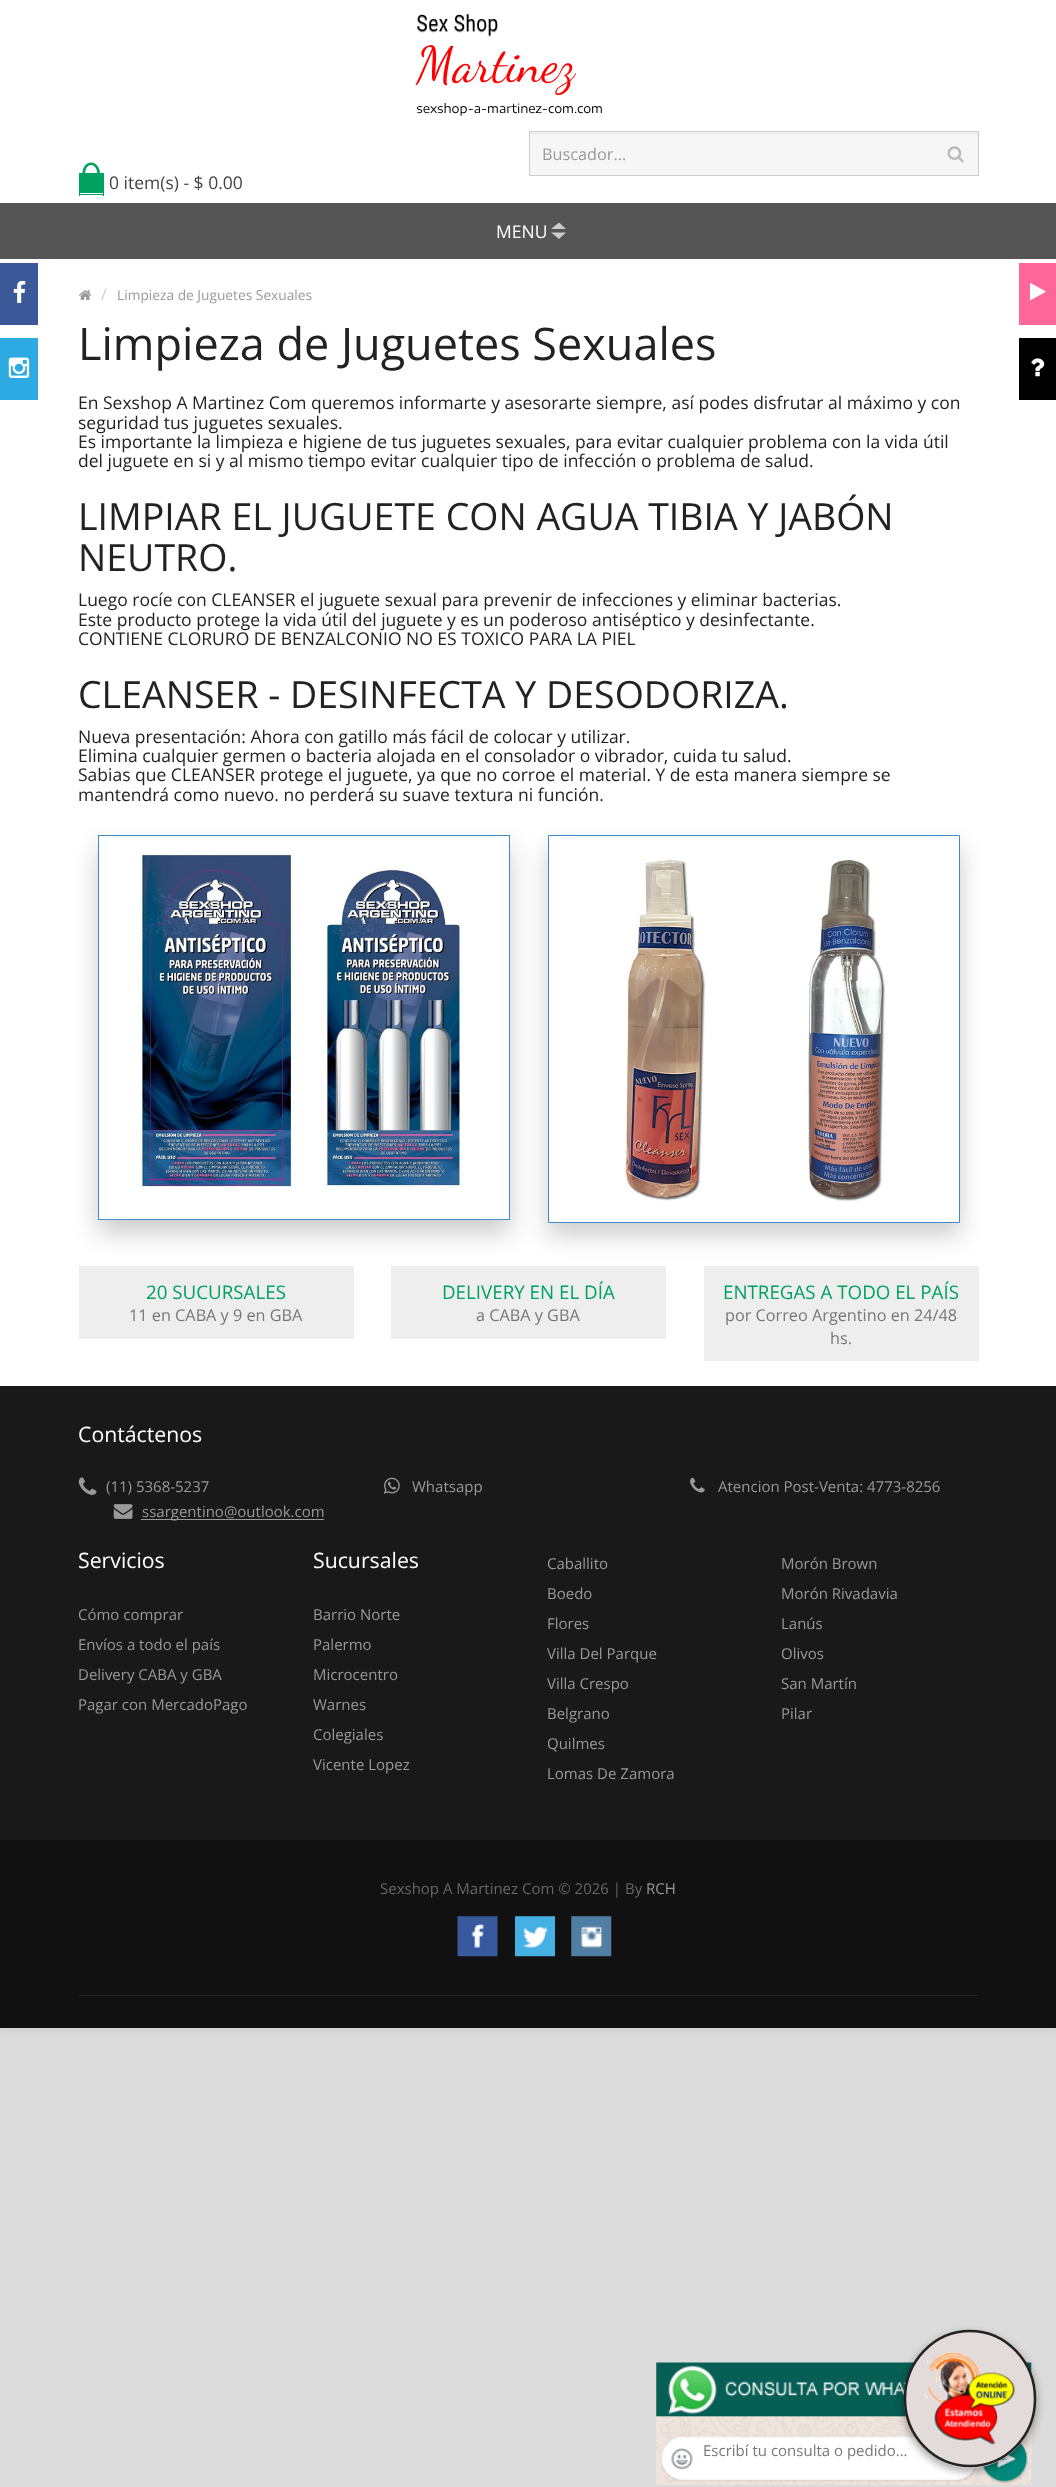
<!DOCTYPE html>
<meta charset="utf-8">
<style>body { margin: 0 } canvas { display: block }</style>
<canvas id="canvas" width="1056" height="2487"></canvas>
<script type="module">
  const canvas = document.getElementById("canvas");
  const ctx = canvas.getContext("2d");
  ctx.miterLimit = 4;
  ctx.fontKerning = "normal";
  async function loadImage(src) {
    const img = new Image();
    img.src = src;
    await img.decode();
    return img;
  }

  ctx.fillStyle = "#dcdbdb";
  ctx.fillRect(0, 0, 1056, 2487);
  ctx.fillStyle = "rgba(0, 0, 0, 0.08)";
  ctx.filter = "blur(6px)";
  ctx.beginPath();
  ctx.rect(0, 0, 1056, 2028);
  ctx.fill();
  ctx.filter = "none";
  ctx.fillStyle = "#ffffff";
  ctx.fillRect(0, 0, 1056, 1386);
  ctx.drawImage(await loadImage("img1.png"), 415, 14, 187, 102);
  ctx.fillStyle = "#f6f6f6";
  ctx.fillRect(530, 132, 448, 43);
  ctx.fillStyle = "#e4e4e4";
  ctx.fillRect(530, 133, 448, 1);
  ctx.strokeStyle = "#cccccc";
  ctx.strokeRect(529.5, 131.5, 449, 44);
  ctx.font = "16.25px Open Sans";
  ctx.fillStyle = "#999999";
  ctx.fillText("Buscador...", 542, 160);
  ctx.drawImage(await loadImage("img2.png"), 947, 146, 17, 17);
  ctx.fillStyle = "#01a161";
  ctx.fillRect(79, 173, 25, 20);
  ctx.beginPath();
  ctx.moveTo(91, 162.5);
  ctx.bezierCurveTo(103, 162.5, 103, 186, 91, 186);
  ctx.bezierCurveTo(79.5, 186, 79.5, 162.5, 91, 162.5);
  ctx.closePath();
  ctx.moveTo(91, 165);
  ctx.bezierCurveTo(100, 165, 99, 186, 91, 186);
  ctx.bezierCurveTo(83.5, 186, 82.5, 165, 91, 165);
  ctx.closePath();
  ctx.fill("evenodd");
  ctx.fillRect(103, 193, 1, 3);
  ctx.fillRect(79, 194, 25, 1);
  ctx.fillRect(79, 193, 1, 3);
  ctx.font = "17.5px Open Sans";
  ctx.fillStyle = "#444444";
  ctx.fillText("0 item(s) - $ 0.00", 109, 189);
  ctx.fillStyle = "#555555";
  ctx.fillRect(0, 203, 1056, 56);
  ctx.fillStyle = "#ffffff";
  ctx.fillText("MENU", 496, 238);
  ctx.fillStyle = "#cccccc";
  ctx.beginPath();
  ctx.moveTo(566, 229);
  ctx.lineTo(551, 229);
  ctx.lineTo(559, 222.5);
  ctx.closePath();
  ctx.moveTo(551, 232.5);
  ctx.lineTo(566, 232.5);
  ctx.lineTo(559, 239);
  ctx.closePath();
  ctx.fill();
  ctx.fillStyle = "#3b5998";
  ctx.fillRect(0, 263, 38, 62);
  ctx.drawImage(await loadImage("img3.png"), 13, 280, 13, 23);
  ctx.drawImage(await loadImage("img4.png"), 79, 290, 13, 10);
  ctx.font = "15px Open Sans";
  ctx.fillStyle = "#cccccc";
  ctx.fillText("/", 101, 300);
  ctx.font = "13.75px Open Sans";
  ctx.fillStyle = "#999999";
  ctx.fillText("Limpieza de Juguetes Sexuales", 117, 300);
  ctx.font = "45px Open Sans";
  ctx.fillStyle = "#222222";
  ctx.fillText("Limpieza de Juguetes Sexuales", 78, 360);
  ctx.font = "17.5px Open Sans";
  ctx.fillText("En Sexshop A Martinez Com queremos informarte y asesorarte siempre, así podes disfrutar al máximo y con", 78, 409);
  ctx.fillText("seguridad tus juguetes sexuales.", 78, 429);
  ctx.fillText("Es importante la limpieza e higiene de tus juguetes sexuales, para evitar cualquier problema con la vida útil", 78, 448);
  ctx.fillText("del juguete en si y al mismo tiempo evitar cualquier tipo de infección o problema de salud.", 78, 467);
  ctx.font = "37.5px Open Sans";
  ctx.fillText("LIMPIAR EL JUGUETE CON AGUA TIBIA Y JABÓN", 78, 530);
  ctx.fillText("NEUTRO.", 78, 571);
  ctx.font = "17.5px Open Sans";
  ctx.fillText("Luego rocíe con CLEANSER el juguete sexual para prevenir de infecciones y eliminar bacterias.", 78, 606);
  ctx.fillText("Este producto protege la vida útil del juguete y es un poderoso antiséptico y desinfectante.", 78, 626);
  ctx.fillText("CONTIENE CLORURO DE BENZALCONIO NO ES TOXICO PARA LA PIEL", 78, 645);
  ctx.font = "37.5px Open Sans";
  ctx.fillText("CLEANSER - DESINFECTA Y DESODORIZA.", 78, 708);
  ctx.font = "17.5px Open Sans";
  ctx.fillText("Nueva presentación: Ahora con gatillo más fácil de colocar y utilizar.", 78, 743);
  ctx.fillText("Elimina cualquier germen o bacteria alojada en el consolador o vibrador, cuida tu salud.", 78, 762);
  ctx.fillText("Sabias que CLEANSER protege el juguete, ya que no corroe el material. Y de esta manera siempre se", 78, 781);
  ctx.fillText("mantendrá como nuevo. no perderá su suave textura ni función.", 78, 801);
  ctx.save();
  ctx.beginPath();
  ctx.moveTo(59, 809);
  ctx.lineTo(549, 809);
  ctx.lineTo(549, 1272);
  ctx.lineTo(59, 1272);
  ctx.closePath();
  ctx.moveTo(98, 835);
  ctx.lineTo(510, 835);
  ctx.lineTo(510, 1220);
  ctx.lineTo(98, 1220);
  ctx.closePath();
  ctx.clip("evenodd");
  ctx.fillStyle = "rgba(0, 0, 0, 0.2)";
  ctx.filter = "blur(12.5px)";
  ctx.beginPath();
  ctx.rect(98, 848, 412, 385);
  ctx.fill();
  ctx.filter = "none";
  ctx.restore();
  ctx.strokeStyle = "#428bca";
  ctx.strokeRect(98.5, 835.5, 411, 384);
  ctx.drawImage(await loadImage("img5.png"), 138, 853, 325, 336);
  ctx.fillStyle = "rgba(0, 0, 0, 0.2)";
  ctx.filter = "blur(12.5px)";
  ctx.beginPath();
  ctx.rect(548, 848, 412, 387);
  ctx.fill();
  ctx.filter = "none";
  ctx.fillStyle = "#ffffff";
  ctx.beginPath();
  ctx.rect(548.5, 835.5, 411, 387);
  ctx.fill();
  ctx.stroke();
  ctx.drawImage(await loadImage("img6.png"), 623, 859, 262, 343);
  ctx.fillStyle = "#ff679a";
  ctx.fillRect(1019, 263, 37, 62);
  ctx.drawImage(await loadImage("img7.png"), 1030, 283, 16, 18);
  ctx.fillStyle = "#2daae1";
  ctx.fillRect(0, 338, 38, 62);
  ctx.drawImage(await loadImage("img8.png"), 8, 357, 22, 21);
  ctx.fillStyle = "#000000";
  ctx.fillRect(1019, 338, 37, 62);
  ctx.drawImage(await loadImage("img9.png"), 1031, 358, 14, 19);
  ctx.fillStyle = "#eeeeee";
  ctx.fillRect(79, 1266, 275, 73);
  ctx.font = "18.75px Open Sans";
  ctx.fillStyle = "#01a161";
  ctx.fillText("20 SUCURSALES", 146, 1299);
  ctx.font = "16.25px Open Sans";
  ctx.fillStyle = "#777777";
  ctx.fillText("11 en CABA y 9 en GBA", 129, 1321);
  ctx.fillStyle = "#eeeeee";
  ctx.fillRect(391, 1266, 275, 73);
  ctx.font = "18.75px Open Sans";
  ctx.fillStyle = "#01a161";
  ctx.fillText("DELIVERY EN EL DÍA", 442, 1299);
  ctx.font = "16.25px Open Sans";
  ctx.fillStyle = "#777777";
  ctx.fillText("a CABA y GBA", 476, 1321);
  ctx.fillStyle = "#eeeeee";
  ctx.fillRect(704, 1266, 275, 95);
  ctx.font = "18.75px Open Sans";
  ctx.fillStyle = "#01a161";
  ctx.fillText("ENTREGAS A TODO EL PAÍS", 723, 1299);
  ctx.font = "16.25px Open Sans";
  ctx.fillStyle = "#777777";
  ctx.fillText("por Correo Argentino en 24/48", 725, 1321);
  ctx.fillText("hs.", 830, 1344);
  ctx.fillStyle = "#191919";
  ctx.fillRect(0, 1386, 1056, 454);
  ctx.font = "21.25px Open Sans";
  ctx.fillStyle = "#ffffff";
  ctx.fillText("Contáctenos", 78, 1442);
  ctx.drawImage(await loadImage("img10.png"), 78, 1477, 19, 18);
  ctx.font = "15px Open Sans";
  ctx.fillStyle = "#999999";
  ctx.fillText("(11) 5368-5237", 106, 1492);
  ctx.drawImage(await loadImage("img11.png"), 383, 1477, 17, 17);
  ctx.fillText("Whatsapp", 412, 1492);
  ctx.drawImage(await loadImage("img12.png"), 690, 1477, 15, 16);
  ctx.fillText("Atencion Post-Venta: 4773-8256", 718, 1492);
  ctx.drawImage(await loadImage("img13.png"), 113, 1504, 20, 15);
  ctx.fillRect(141, 1519, 183, 1);
  ctx.fillText("ssargentino@outlook.com", 142, 1517);
  ctx.font = "21.25px Open Sans";
  ctx.fillStyle = "#ffffff";
  ctx.fillText("Servicios", 78, 1568);
  ctx.font = "15px Open Sans";
  ctx.fillStyle = "#999999";
  ctx.fillText("Cómo comprar", 78, 1620);
  ctx.fillText("Envíos a todo el país", 78, 1650);
  ctx.fillText("Delivery CABA y GBA", 78, 1680);
  ctx.fillText("Pagar con MercadoPago", 78, 1710);
  ctx.font = "21.25px Open Sans";
  ctx.fillStyle = "#ffffff";
  ctx.fillText("Sucursales", 313, 1568);
  ctx.font = "15px Open Sans";
  ctx.fillStyle = "#999999";
  ctx.fillText("Barrio Norte", 313, 1620);
  ctx.fillText("Palermo", 313, 1650);
  ctx.fillText("Microcentro", 313, 1680);
  ctx.fillText("Warnes", 313, 1710);
  ctx.fillText("Colegiales", 313, 1740);
  ctx.fillText("Vicente Lopez", 313, 1770);
  ctx.fillText("Caballito", 547, 1569);
  ctx.fillText("Boedo", 547, 1599);
  ctx.fillText("Flores", 547, 1629);
  ctx.fillText("Villa Del Parque", 547, 1659);
  ctx.fillText("Villa Crespo", 547, 1689);
  ctx.fillText("Belgrano", 547, 1719);
  ctx.fillText("Quilmes", 547, 1749);
  ctx.fillText("Lomas De Zamora", 547, 1779);
  ctx.fillText("Morón Brown", 781, 1569);
  ctx.fillText("Morón Rivadavia", 781, 1599);
  ctx.fillText("Lanús", 781, 1629);
  ctx.fillText("Olivos", 781, 1659);
  ctx.fillText("San Martín", 781, 1689);
  ctx.fillText("Pilar", 781, 1719);
  ctx.fillStyle = "#111111";
  ctx.fillRect(0, 1840, 1056, 188);
  ctx.fillStyle = "#222222";
  ctx.fillRect(79, 1995, 900, 1);
  ctx.fillStyle = "#666666";
  ctx.fillText("Sexshop A Martinez Com © 2026 | By", 380, 1894);
  ctx.fillStyle = "#999999";
  ctx.fillText("RCH", 646, 1894);
  ctx.drawImage(await loadImage("img14.png"), 457, 1916, 41, 41);
  ctx.drawImage(await loadImage("img15.png"), 515, 1916, 40, 41);
  ctx.drawImage(await loadImage("img16.png"), 571, 1916, 41, 41);
  ctx.fillStyle = "rgba(255, 255, 255, 0.5)";
  ctx.filter = "blur(0.5px)";
  ctx.beginPath();
  ctx.roundRect(656, 2363, 375, 62, 31);
  ctx.fill();
  ctx.filter = "none";
  ctx.drawImage(await loadImage("img17.png"), 656, 2362, 376, 123);
  ctx.fillStyle = "#ffffff";
  ctx.fillRect(703, 2454, 1, 10);
  ctx.fillStyle = "#777777";
  ctx.fillText("Escribí tu consulta o pedido...", 703, 2456);
  ctx.fillStyle = "rgba(0, 0, 0, 0.23)";
  ctx.filter = "blur(4px)";
  ctx.beginPath();
  ctx.roundRect(904, 2334, 132, 137, 66);
  ctx.fill();
  ctx.filter = "none";
  ctx.fillStyle = "rgba(0, 0, 0, 0.16)";
  ctx.filter = "blur(4px)";
  ctx.beginPath();
  ctx.roundRect(904, 2334, 132, 137, 66);
  ctx.fill();
  ctx.filter = "none";
  ctx.fillStyle = "#e3dada";
  ctx.beginPath();
  ctx.ellipse(970, 2399, 66, 69, 0, 0, Math.PI * 2);
  ctx.fill();
  ctx.beginPath();
  ctx.moveTo(970, 2331);
  ctx.bezierCurveTo(1006, 2331, 1035, 2361.5, 1035, 2399);
  ctx.bezierCurveTo(1035, 2436, 1006, 2466, 970, 2466);
  ctx.bezierCurveTo(934, 2466, 905, 2436, 905, 2399);
  ctx.bezierCurveTo(905, 2361.5, 934, 2331, 970, 2331);
  ctx.closePath();
  ctx.strokeStyle = "#222222";
  ctx.lineWidth = 2.5;
  ctx.stroke();
  ctx.drawImage(await loadImage("img18.png"), 925, 2352, 90, 94);
</script>
